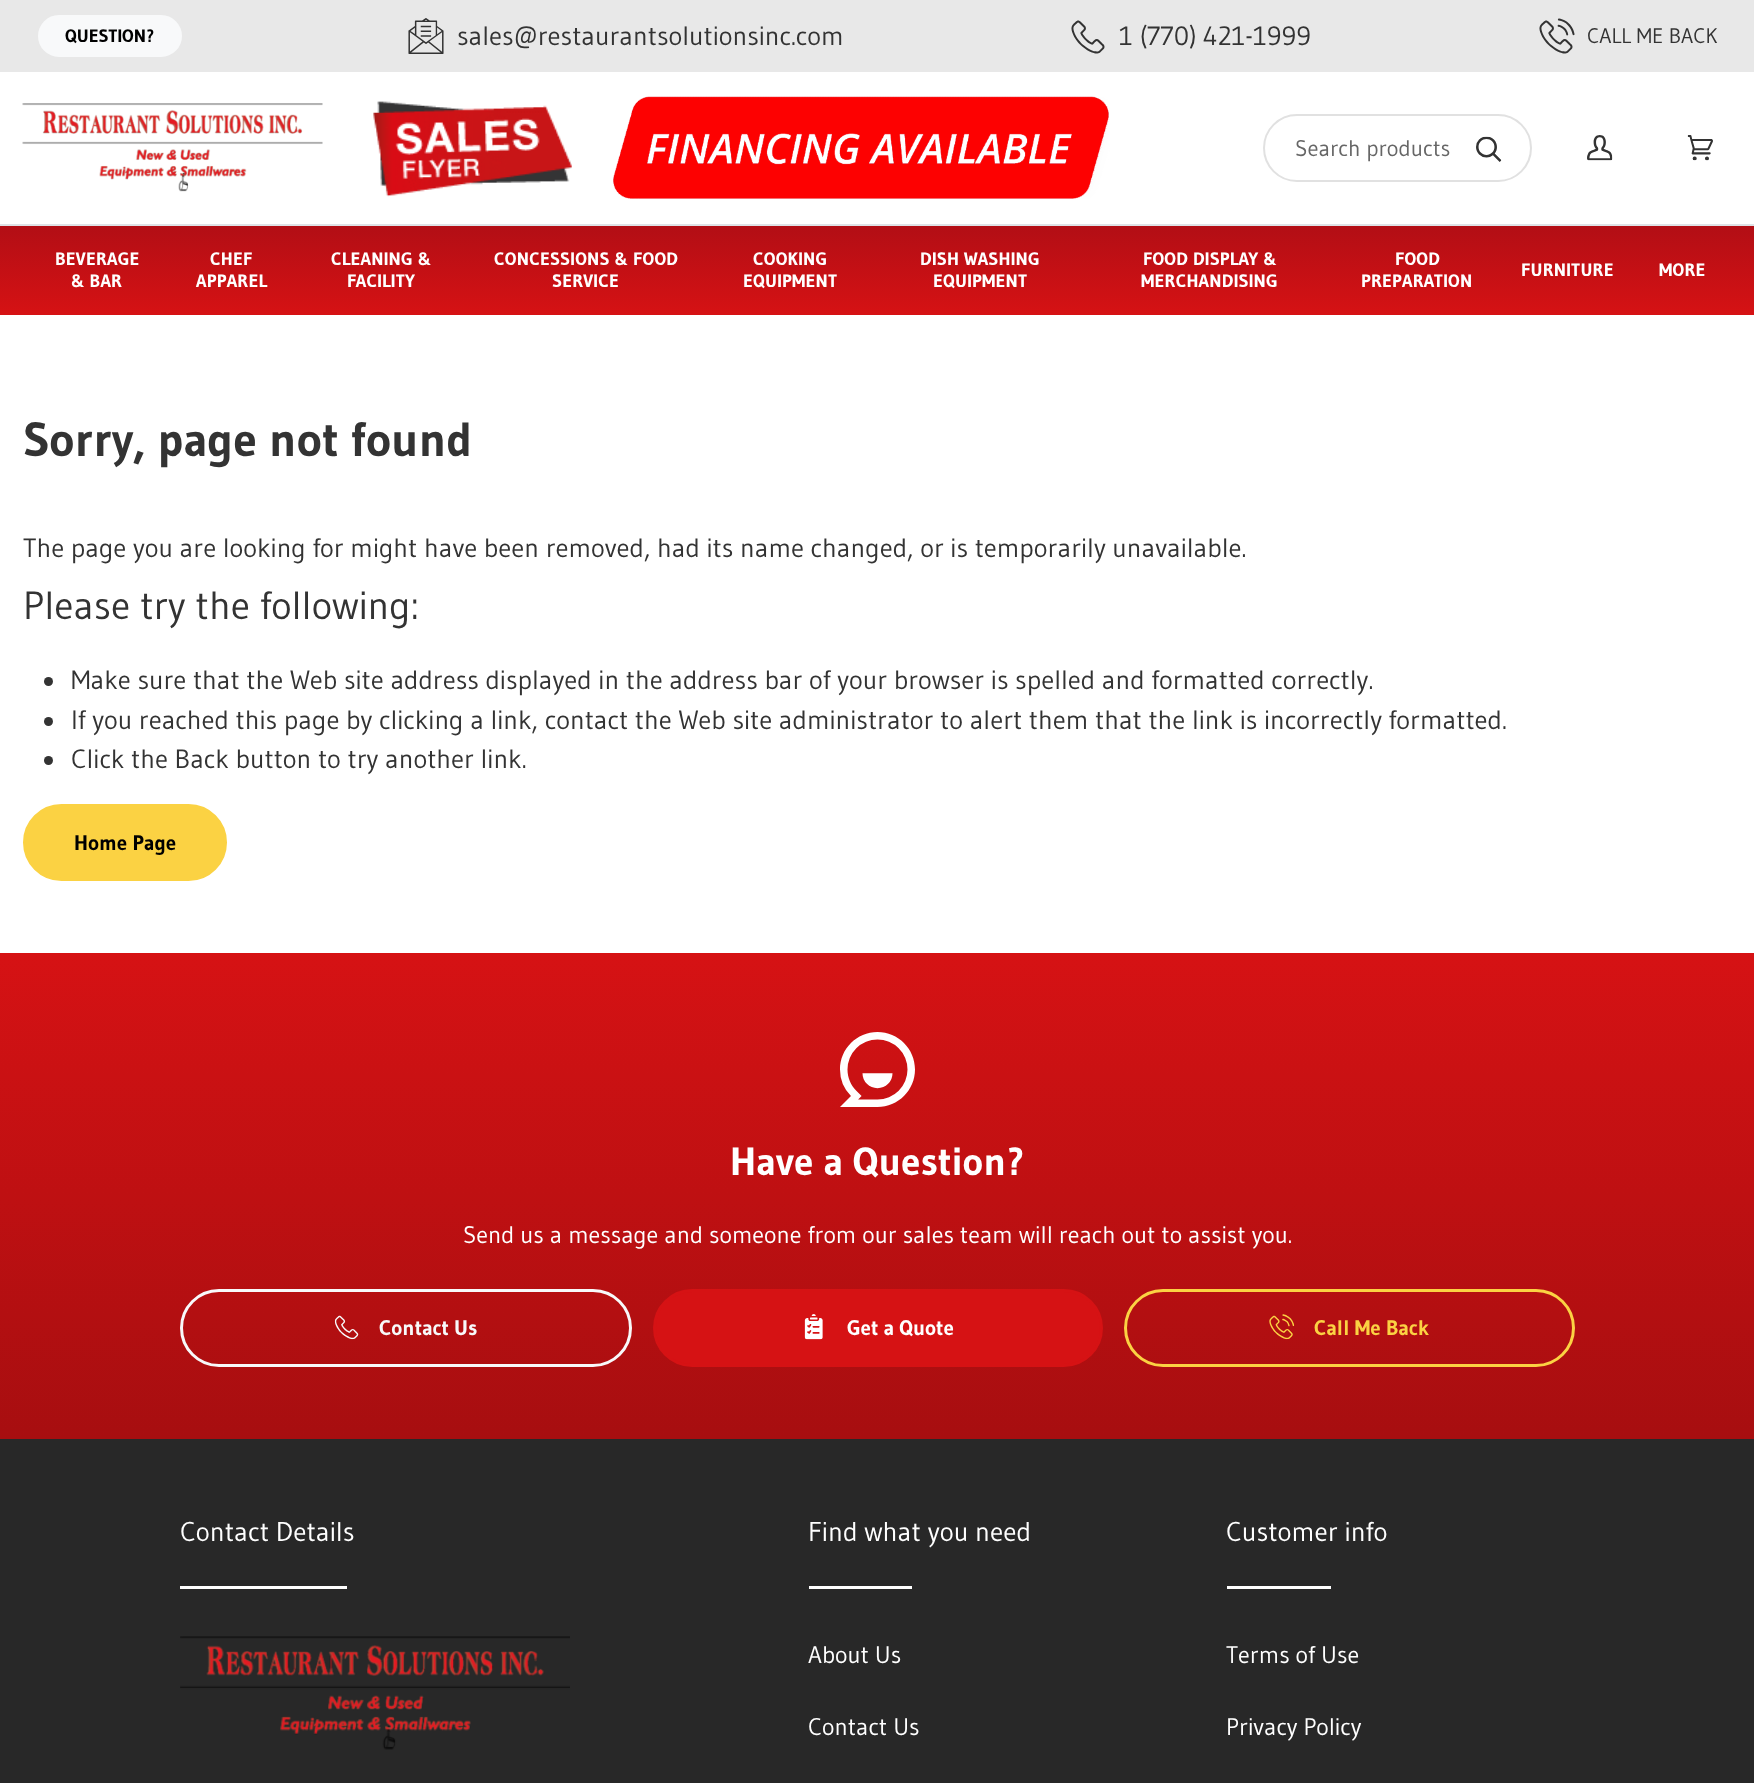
<!DOCTYPE html>
<meta charset="utf-8">
<style>body { margin: 0 } canvas { display: block }</style>
<canvas id="canvas" width="1754" height="1783"></canvas>
<script type="module">
  const canvas = document.getElementById("canvas");
  const ctx = canvas.getContext("2d");
  ctx.miterLimit = 4;
  ctx.fontKerning = "normal";
  async function loadImage(src) {
    const img = new Image();
    img.src = src;
    await img.decode();
    return img;
  }
  let gradient;

  ctx.fillStyle = "#ffffff";
  ctx.fillRect(0, 0, 1754, 1783);
  ctx.fillStyle = "#e8e8e8";
  ctx.fillRect(0, 0, 1754, 72);
  ctx.fillStyle = "#f8f9fa";
  ctx.beginPath();
  ctx.roundRect(39.5, 16.5, 141, 39, 19.5);
  ctx.fill();
  ctx.strokeStyle = "#f8f9fa";
  ctx.lineWidth = 3;
  ctx.stroke();
  ctx.font = "bold 18px Gudea";
  ctx.fillStyle = "#000000";
  ctx.fillText("QUESTION?", 65, 42);
  ctx.drawImage(await loadImage("img1.png"), 408, 18, 36, 36);
  ctx.font = "26.55px Gudea";
  ctx.fillStyle = "#333333";
  ctx.fillText("sales@restaurantsolutionsinc.com", 457, 45);
  ctx.drawImage(await loadImage("img2.png"), 1071, 20, 34, 34);
  ctx.fillText("1 (770) 421-1999", 1119, 45);
  ctx.drawImage(await loadImage("img3.png"), 1539, 18, 36, 36);
  ctx.font = "21px Gudea";
  ctx.fillText("CALL ME BACK", 1587, 43);
  ctx.fillStyle = "#dee2e6";
  ctx.fillRect(0, 224, 1754, 2);
  ctx.drawImage(await loadImage("img4.png"), 22, 103, 301, 89);
  ctx.drawImage(await loadImage("img5.png"), 373, 101, 199, 96);
  ctx.drawImage(await loadImage("img6.png"), 613, 96, 497, 103);
  ctx.beginPath();
  ctx.roundRect(1264, 115, 267, 66, 33);
  ctx.strokeStyle = "#e1e1e1";
  ctx.lineWidth = 2;
  ctx.stroke();
  ctx.font = "22.5px Gudea";
  ctx.fillStyle = "#666666";
  ctx.fillText("Search products", 1295, 156);
  ctx.drawImage(await loadImage("img7.png"), 1476, 136, 26, 26);
  ctx.drawImage(await loadImage("img8.png"), 1587, 135, 26, 26);
  ctx.drawImage(await loadImage("img9.png"), 1687, 135, 26, 26);
  gradient = ctx.createLinearGradient(878, 225, 878, 315);
  gradient.addColorStop(0, "#b20e15");
  gradient.addColorStop(1, "#d61214");
  ctx.fillStyle = gradient;
  ctx.fillRect(0, 226, 1754, 89);
  ctx.letterSpacing = "0.25px";
  ctx.font = "bold 18px Gudea";
  ctx.fillStyle = "#ffffff";
  ctx.fillText("BEVERAGE", 55, 265);
  ctx.fillText("& BAR", 71, 287);
  ctx.fillText("CHEF", 210, 265);
  ctx.fillText("APPAREL", 196, 287);
  ctx.fillText("CLEANING &", 331, 265);
  ctx.fillText("FACILITY", 347, 287);
  ctx.fillText("CONCESSIONS & FOOD", 494, 265);
  ctx.fillText("SERVICE", 552, 287);
  ctx.fillText("COOKING", 753, 265);
  ctx.fillText("EQUIPMENT", 743, 287);
  ctx.fillText("DISH WASHING", 920, 265);
  ctx.fillText("EQUIPMENT", 933, 287);
  ctx.fillText("FOOD DISPLAY &", 1143, 265);
  ctx.fillText("MERCHANDISING", 1141, 287);
  ctx.fillText("FOOD", 1395, 265);
  ctx.fillText("PREPARATION", 1361, 287);
  ctx.fillText("FURNITURE", 1521, 276);
  ctx.fillText("MORE", 1659, 276);
  ctx.letterSpacing = "0px";
  ctx.font = "bold 47.75px Gudea";
  ctx.fillStyle = "#333333";
  ctx.fillText("Sorry, page not found", 23, 456);
  ctx.font = "26.55px Gudea";
  ctx.fillText("The page you are looking for might have been removed, had its name changed, or is temporarily unavailable.", 23, 557);
  ctx.font = "39.25px Gudea";
  ctx.fillText("Please try the following:", 23, 619);
  ctx.beginPath();
  ctx.arc(48.5, 681.5, 4.5, 0, Math.PI * 2);
  ctx.fill();
  ctx.font = "26.55px Gudea";
  ctx.fillText("Make sure that the Web site address displayed in the address bar of your browser is spelled and formatted correctly.", 71, 689);
  ctx.beginPath();
  ctx.arc(48.5, 721.5, 4.5, 0, Math.PI * 2);
  ctx.fill();
  ctx.fillText("If you reached this page by clicking a link, contact the Web site administrator to alert them that the link is incorrectly formatted.", 71, 729);
  ctx.beginPath();
  ctx.arc(48.5, 760.5, 4.5, 0, Math.PI * 2);
  ctx.fill();
  ctx.fillText("Click the Back button to try another link.", 71, 768);
  ctx.fillStyle = "#fbd243";
  ctx.beginPath();
  ctx.roundRect(24.5, 805.5, 201, 74, 37);
  ctx.fill();
  ctx.strokeStyle = "#fbd243";
  ctx.lineWidth = 3;
  ctx.stroke();
  ctx.font = "bold 21px Gudea";
  ctx.fillStyle = "#000000";
  ctx.fillText("Home Page", 74, 850);
  gradient = ctx.createLinearGradient(878, 952, 878, 1439);
  gradient.addColorStop(0, "#d61214");
  gradient.addColorStop(1, "#a70e10");
  ctx.fillStyle = gradient;
  ctx.fillRect(0, 953, 1754, 486);
  ctx.drawImage(await loadImage("img10.png"), 840, 1032, 75, 75);
  ctx.font = "bold 39.25px Gudea";
  ctx.fillStyle = "#ffffff";
  ctx.fillText("Have a Question?", 730, 1175);
  ctx.font = "24px Gudea";
  ctx.fillText("Send us a message and someone from our sales team will reach out to assist you.", 463, 1243);
  ctx.beginPath();
  ctx.roundRect(181.5, 1290.5, 449, 75, 37.5);
  ctx.strokeStyle = "#f8f9fa";
  ctx.stroke();
  ctx.drawImage(await loadImage("img11.png"), 334, 1315, 25, 25);
  ctx.font = "bold 21px Gudea";
  ctx.fillStyle = "#f8f9fa";
  ctx.fillText("Contact Us", 379, 1335);
  ctx.fillStyle = "#d61214";
  ctx.beginPath();
  ctx.roundRect(654.5, 1290.5, 447, 75, 37.5);
  ctx.fill();
  ctx.strokeStyle = "#d61214";
  ctx.stroke();
  ctx.drawImage(await loadImage("img12.png"), 804, 1314, 19, 26);
  ctx.fillStyle = "#ffffff";
  ctx.fillText("Get a Quote", 847, 1335);
  ctx.beginPath();
  ctx.roundRect(1125.5, 1290.5, 448, 75, 37.5);
  ctx.strokeStyle = "#fbd243";
  ctx.stroke();
  ctx.drawImage(await loadImage("img13.png"), 1269, 1314, 26, 26);
  ctx.fillStyle = "#fbd243";
  ctx.fillText("Call Me Back", 1314, 1335);
  ctx.fillStyle = "#282828";
  ctx.fillRect(0, 1439, 1754, 344);
  ctx.font = "27px Gudea";
  ctx.fillStyle = "#ffffff";
  ctx.fillText("Contact Details", 180, 1541);
  ctx.fillRect(180, 1586, 167, 3);
  ctx.drawImage(await loadImage("img14.png"), 180, 1636, 390, 114);
  ctx.fillText("Find what you need", 808, 1541);
  ctx.fillRect(809, 1586, 103, 3);
  ctx.font = "24px Gudea";
  ctx.fillText("About Us", 808, 1663);
  ctx.fillText("Contact Us", 808, 1735);
  ctx.font = "27px Gudea";
  ctx.fillText("Customer info", 1226, 1541);
  ctx.fillRect(1227, 1586, 104, 3);
  ctx.font = "24px Gudea";
  ctx.fillText("Terms of Use", 1226, 1663);
  ctx.fillText("Privacy Policy", 1226, 1735);
</script>
